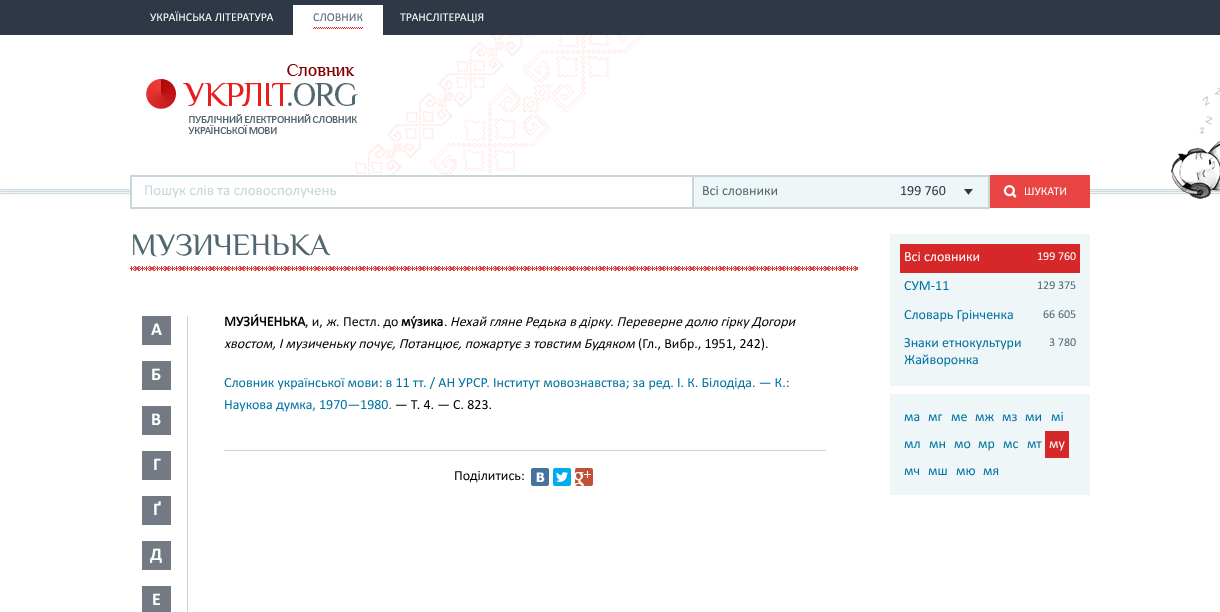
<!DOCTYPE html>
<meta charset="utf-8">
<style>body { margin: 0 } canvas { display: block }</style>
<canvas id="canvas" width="1220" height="612"></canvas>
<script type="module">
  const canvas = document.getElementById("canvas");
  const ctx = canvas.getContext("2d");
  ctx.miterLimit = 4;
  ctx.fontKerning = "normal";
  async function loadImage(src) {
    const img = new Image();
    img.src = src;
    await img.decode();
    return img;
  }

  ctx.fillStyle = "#ffffff";
  ctx.fillRect(0, 0, 1220, 612);
  ctx.save();
  ctx.beginPath();
  ctx.rect(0, 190, 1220, 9);
  ctx.clip();
  ctx.fillStyle = "rgba(150, 173, 188, 0.35)";
  ctx.filter = "blur(5px)";
  ctx.beginPath();
  ctx.rect(0, 1, 1220, 190);
  ctx.fill();
  ctx.filter = "none";
  ctx.restore();
  ctx.fillStyle = "#ced9e0";
  ctx.fillRect(0, 189, 1220, 1);
  ctx.fillStyle = "#2e3847";
  ctx.fillRect(0, 0, 1220, 35);
  ctx.font = "12px Calibri";
  ctx.fillStyle = "#ffffff";
  ctx.fillText("УКРАЇНСЬКА ЛІТЕРАТУРА", 150, 21);
  ctx.fillRect(293, 5, 90, 30);
  ctx.fillStyle = "#526871";
  ctx.fillText("СЛОВНИК", 313, 21);
  ctx.drawImage(await loadImage("img1.png"), 313, 27, 50, 2);
  ctx.fillStyle = "#ffffff";
  ctx.fillText("ТРАНСЛІТЕРАЦІЯ", 400, 21);
  ctx.drawImage(await loadImage("img2.png"), 354, 35, 290, 140);
  ctx.drawImage(await loadImage("img3.png"), 146, 64, 212, 70);
  ctx.fillStyle = "#ced9e0";
  ctx.fillRect(0, 191, 1220, 1);
  ctx.fillRect(0, 193, 1220, 1);
  ctx.drawImage(await loadImage("img4.png"), 1171, 88, 49, 111);
  ctx.fillStyle = "#ffffff";
  ctx.fillRect(132, 189, 958, 9);
  ctx.fillStyle = "#c6d6db";
  ctx.fillRect(130, 175, 562, 2);
  ctx.fillRect(130, 207, 562, 2);
  ctx.fillRect(130, 175, 2, 34);
  ctx.font = "15px Calibri";
  ctx.fillText("Пошук слів та словосполучень", 144, 195);
  ctx.fillStyle = "#eef6f8";
  ctx.beginPath();
  ctx.rect(693, 176, 296, 32);
  ctx.fill();
  ctx.strokeStyle = "#c6d6db";
  ctx.lineWidth = 2;
  ctx.stroke();
  ctx.font = "14px Calibri";
  ctx.fillStyle = "#526871";
  ctx.fillText("Всі словники", 702, 195);
  ctx.fillStyle = "#2e3847";
  ctx.fillText("199 760", 900, 195);
  ctx.drawImage(await loadImage("img5.png"), 964, 189, 9, 6);
  ctx.fillStyle = "#e94444";
  ctx.fillRect(990, 175, 100, 33);
  ctx.drawImage(await loadImage("img6.png"), 1003, 185, 14, 13);
  ctx.font = "12px Calibri";
  ctx.fillStyle = "#ffffff";
  ctx.fillText("ШУКАТИ", 1024, 195);
  ctx.drawImage(await loadImage("img7.png"), 130, 266, 728, 5);
  ctx.font = "31px Philosopher";
  ctx.fillStyle = "#526871";
  ctx.fillText("МУЗИЧЕНЬКА", 130, 255);
  ctx.fillStyle = "#c6d6db";
  ctx.fillRect(187, 316, 1, 296);
  ctx.fillStyle = "#737a84";
  ctx.fillRect(142, 316, 29, 29);
  ctx.font = "bold 18px 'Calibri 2'";
  ctx.fillStyle = "#ffffff";
  ctx.fillText("А", 151, 335);
  ctx.fillStyle = "#737a84";
  ctx.fillRect(142, 361, 29, 29);
  ctx.fillStyle = "#ffffff";
  ctx.fillText("Б", 151, 380);
  ctx.fillStyle = "#737a84";
  ctx.fillRect(142, 406, 29, 29);
  ctx.fillStyle = "#ffffff";
  ctx.fillText("В", 151, 425);
  ctx.fillStyle = "#737a84";
  ctx.fillRect(142, 451, 29, 29);
  ctx.fillStyle = "#ffffff";
  ctx.fillText("Г", 153, 470);
  ctx.fillStyle = "#737a84";
  ctx.fillRect(142, 496, 29, 29);
  ctx.fillStyle = "#ffffff";
  ctx.fillText("Ґ", 153, 515);
  ctx.fillStyle = "#737a84";
  ctx.fillRect(142, 541, 29, 29);
  ctx.fillStyle = "#ffffff";
  ctx.fillText("Д", 150, 560);
  ctx.fillStyle = "#737a84";
  ctx.fillRect(142, 586, 29, 26);
  ctx.fillStyle = "#ffffff";
  ctx.fillText("Е", 152, 605);
  ctx.fillStyle = "#c6d6db";
  ctx.fillRect(224, 450, 602, 1);
  ctx.font = "bold 14px Calibri";
  ctx.fillStyle = "#000000";
  ctx.fillText("МУЗИ́ЧЕНЬКА", 224, 326);
  ctx.font = "14px Calibri";
  ctx.fillText(", и,", 305, 326);
  ctx.font = "italic 14px Calibri";
  ctx.fillText("ж.", 326, 326);
  ctx.font = "14px Calibri";
  ctx.fillText("Пестл. до", 343, 326);
  ctx.font = "bold 14px Calibri";
  ctx.fillText("му́зика", 401, 326);
  ctx.font = "14px Calibri";
  ctx.fillText(".", 444, 326);
  ctx.font = "italic 14px Calibri";
  ctx.fillText("Нехай гляне Редька в дірку. Переверне долю гірку Догори", 450, 326);
  ctx.fillText("хвостом, І музиченьку почує, Потанцює, пожартує з товстим Будяком", 224, 348);
  ctx.font = "14px Calibri";
  ctx.fillText("(Гл., Вибр., 1951, 242).", 638, 348);
  ctx.fillStyle = "#0072a1";
  ctx.fillText("Словник української мови: в 11 тт. / АН УРСР. Інститут мовознавства; за ред. І. К. Білодіда. — К.:", 224, 387);
  ctx.fillText("Наукова думка, 1970—1980.", 224, 409);
  ctx.fillStyle = "#000000";
  ctx.fillText("— Т. 4. — С. 823.", 395, 409);
  ctx.fillText("Поділитись:", 454, 480);
  ctx.fillStyle = "#48729e";
  ctx.beginPath();
  ctx.roundRect(531, 468, 18, 18, 2);
  ctx.fill();
  ctx.drawImage(await loadImage("img8.png"), 536, 472, 9, 10);
  ctx.fillStyle = "#00aced";
  ctx.beginPath();
  ctx.roundRect(553, 468, 18, 18, 2);
  ctx.fill();
  ctx.drawImage(await loadImage("img9.png"), 556, 472, 12, 10);
  ctx.fillStyle = "#c25234";
  ctx.beginPath();
  ctx.roundRect(575, 468, 18, 18, 2);
  ctx.fill();
  ctx.drawImage(await loadImage("img10.png"), 575, 471, 16, 15);
  ctx.fillStyle = "#eef6f8";
  ctx.fillRect(890, 234, 200, 152);
  ctx.fillStyle = "#d62828";
  ctx.fillRect(900, 244, 180, 29);
  ctx.fillStyle = "#ffffff";
  ctx.fillText("Всі словники", 904, 261);
  ctx.font = "12px Calibri";
  ctx.fillText("199 760", 1037, 260);
  ctx.font = "14px Calibri";
  ctx.fillStyle = "#0072a1";
  ctx.fillText("СУМ-11", 904, 290);
  ctx.font = "12px Calibri";
  ctx.fillStyle = "#526871";
  ctx.fillText("129 375", 1037, 289);
  ctx.font = "14px Calibri";
  ctx.fillStyle = "#0072a1";
  ctx.fillText("Словарь Грінченка", 904, 319);
  ctx.font = "12px Calibri";
  ctx.fillStyle = "#526871";
  ctx.fillText("66 605", 1043, 318);
  ctx.font = "14px Calibri";
  ctx.fillStyle = "#0072a1";
  ctx.fillText("Знаки етнокультури", 904, 347);
  ctx.fillText("Жайворонка", 904, 364);
  ctx.font = "12px Calibri";
  ctx.fillStyle = "#526871";
  ctx.fillText("3 780", 1049, 346);
  ctx.fillStyle = "#eef6f8";
  ctx.fillRect(890, 394, 200, 101);
  ctx.font = "14px Calibri";
  ctx.fillStyle = "#0072a1";
  ctx.fillText("ма", 904, 421);
  ctx.fillText("мг", 928, 421);
  ctx.fillText("ме", 951, 421);
  ctx.fillText("мж", 975, 421);
  ctx.fillText("мз", 1002, 421);
  ctx.fillText("ми", 1025, 421);
  ctx.fillText("мі", 1051, 421);
  ctx.fillText("мл", 904, 448);
  ctx.fillText("мн", 929, 448);
  ctx.fillText("мо", 954, 448);
  ctx.fillText("мр", 978, 448);
  ctx.fillText("мс", 1003, 448);
  ctx.fillText("мт", 1027, 448);
  ctx.fillStyle = "#d62828";
  ctx.fillRect(1045, 431, 24, 27);
  ctx.fillStyle = "#ffffff";
  ctx.fillText("му", 1049, 448);
  ctx.fillStyle = "#0072a1";
  ctx.fillText("мч", 904, 475);
  ctx.fillText("мш", 928, 475);
  ctx.fillText("мю", 956, 475);
  ctx.fillText("мя", 983, 475);
</script>
